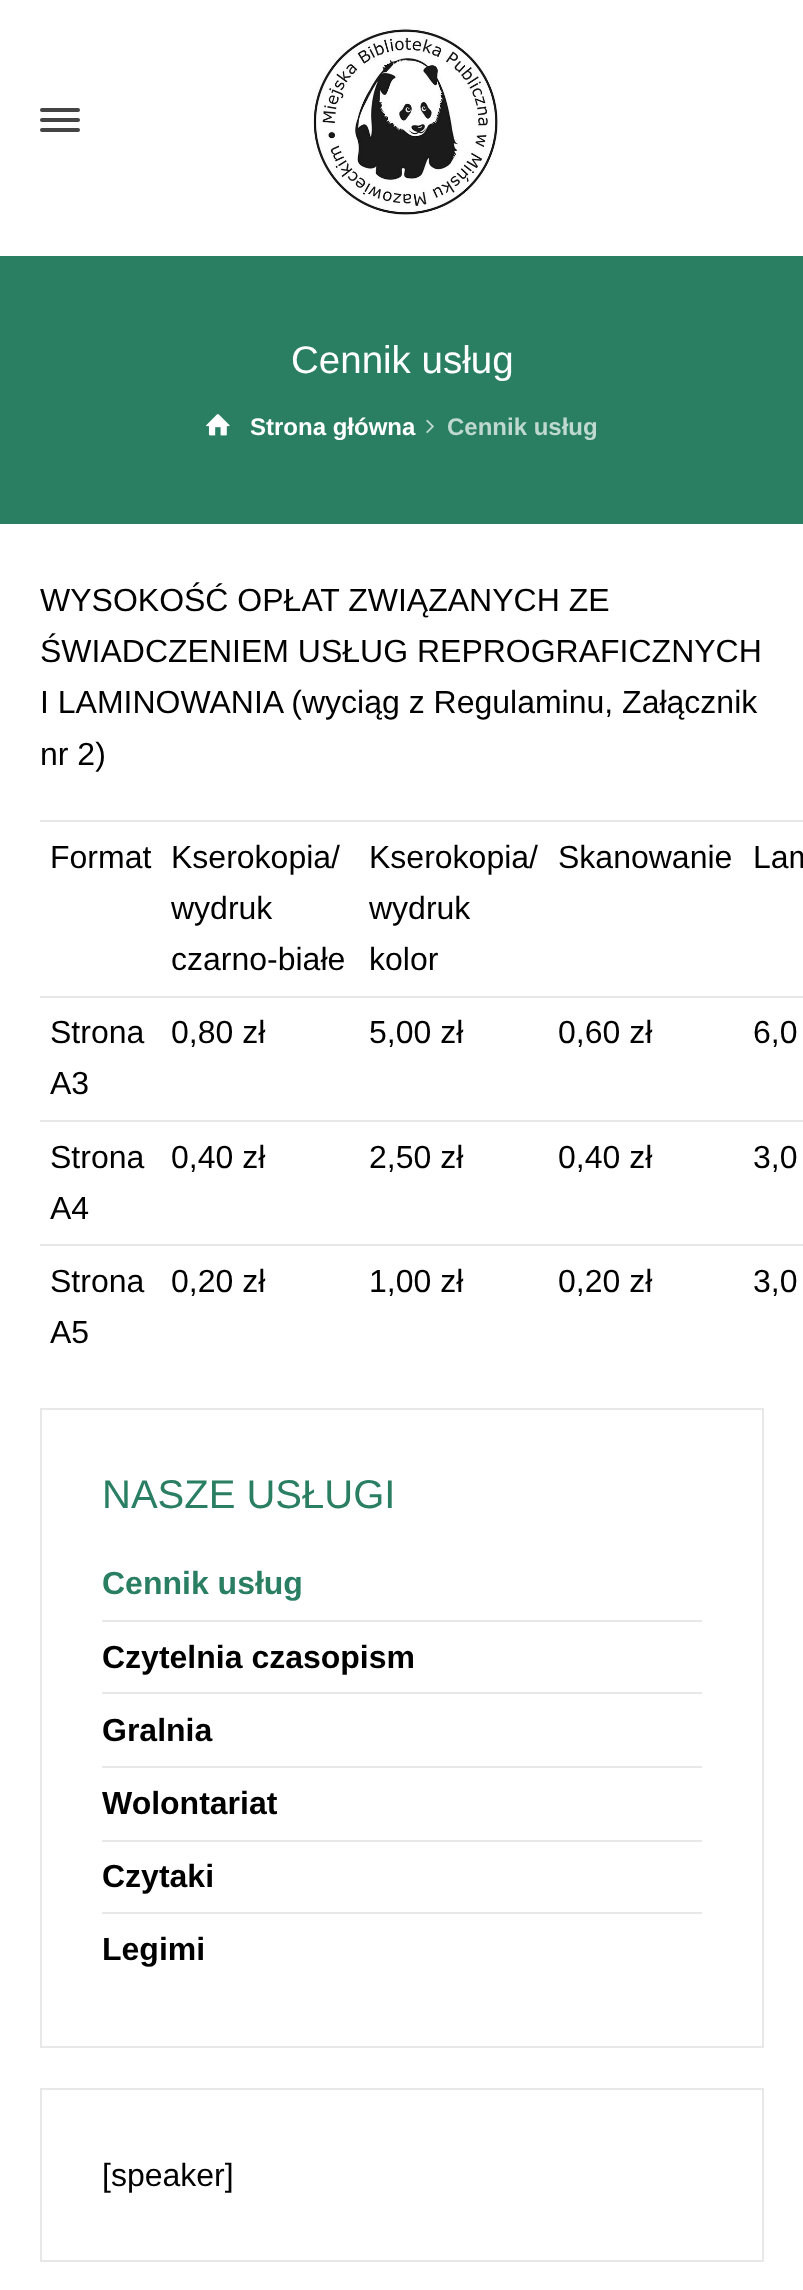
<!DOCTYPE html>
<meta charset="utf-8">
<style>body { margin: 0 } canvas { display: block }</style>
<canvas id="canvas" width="803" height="2290"></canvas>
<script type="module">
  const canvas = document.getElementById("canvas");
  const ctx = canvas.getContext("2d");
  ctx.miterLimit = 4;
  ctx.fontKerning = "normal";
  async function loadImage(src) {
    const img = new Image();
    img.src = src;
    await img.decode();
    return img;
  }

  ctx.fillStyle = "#ffffff";
  ctx.fillRect(0, 0, 803, 2290);
  ctx.fillStyle = "#444444";
  ctx.beginPath();
  ctx.roundRect(40, 108, 40, 4, 2);
  ctx.fill();
  ctx.beginPath();
  ctx.roundRect(40, 118, 40, 4, 2);
  ctx.fill();
  ctx.beginPath();
  ctx.roundRect(40, 128, 40, 4, 2);
  ctx.fill();
  ctx.drawImage(await loadImage("img1.png"), 313, 28, 185, 187);
  ctx.fillStyle = "#2a7f62";
  ctx.fillRect(0, 256, 803, 268);
  ctx.font = "38.5px Liberation Sans";
  ctx.fillStyle = "#ffffff";
  ctx.fillText("Cennik usług", 291, 373);
  ctx.drawImage(await loadImage("img2.png"), 206, 414, 24, 22);
  ctx.font = "bold 24px Liberation Sans";
  ctx.fillText("Strona główna", 250, 435);
  ctx.drawImage(await loadImage("img3.png"), 426, 419, 8, 15);
  ctx.fillStyle = "#bfd9d0";
  ctx.fillText("Cennik usług", 447, 435);
  ctx.font = "32px Liberation Sans";
  ctx.fillStyle = "#000000";
  ctx.fillText("WYSOKOŚĆ OPŁAT ZWIĄZANYCH ZE", 40, 611);
  ctx.fillText("ŚWIADCZENIEM USŁUG REPROGRAFICZNYCH", 40, 662);
  ctx.fillText("I LAMINOWANIA (wyciąg z Regulaminu, Załącznik", 40, 713);
  ctx.fillText("nr 2)", 40, 765);
  ctx.fillText("Format", 50, 868);
  ctx.fillText("Kserokopia/", 171, 868);
  ctx.fillText("wydruk", 171, 919);
  ctx.fillText("czarno-białe", 171, 970);
  ctx.fillText("Kserokopia/", 369, 868);
  ctx.fillText("wydruk", 369, 919);
  ctx.fillText("kolor", 369, 970);
  ctx.fillText("Skanowanie", 558, 868);
  ctx.fillStyle = "#e8e8e8";
  ctx.fillRect(40, 820, 763, 2);
  ctx.fillStyle = "#000000";
  ctx.fillText("Lam", 753, 868);
  ctx.fillText("Strona", 50, 1043);
  ctx.fillText("A3", 50, 1094);
  ctx.fillText("0,80 zł", 171, 1043);
  ctx.fillText("5,00 zł", 369, 1043);
  ctx.fillText("0,60 zł", 558, 1043);
  ctx.fillStyle = "#e8e8e8";
  ctx.fillRect(40, 996, 763, 2);
  ctx.fillStyle = "#000000";
  ctx.fillText("6,0", 753, 1043);
  ctx.fillText("Strona", 50, 1168);
  ctx.fillText("A4", 50, 1219);
  ctx.fillText("0,40 zł", 171, 1168);
  ctx.fillText("2,50 zł", 369, 1168);
  ctx.fillText("0,40 zł", 558, 1168);
  ctx.fillStyle = "#e8e8e8";
  ctx.fillRect(40, 1120, 763, 2);
  ctx.fillStyle = "#000000";
  ctx.fillText("3,0", 753, 1168);
  ctx.fillText("Strona", 50, 1292);
  ctx.fillText("A5", 50, 1343);
  ctx.fillText("0,20 zł", 171, 1292);
  ctx.fillText("1,00 zł", 369, 1292);
  ctx.fillText("0,20 zł", 558, 1292);
  ctx.fillStyle = "#e8e8e8";
  ctx.fillRect(40, 1244, 763, 2);
  ctx.fillStyle = "#000000";
  ctx.fillText("3,0", 753, 1292);
  ctx.strokeStyle = "#e8e8e8";
  ctx.lineWidth = 2;
  ctx.strokeRect(41, 1409, 722, 638);
  ctx.font = "40px Liberation Sans";
  ctx.fillStyle = "#2a7f62";
  ctx.fillText("NASZE USŁUGI", 102, 1508);
  ctx.fillStyle = "#e8e8e8";
  ctx.fillRect(102, 1620, 600, 2);
  ctx.font = "bold 32px Liberation Sans";
  ctx.fillStyle = "#2a7f62";
  ctx.fillText("Cennik usług", 102, 1594);
  ctx.fillStyle = "#e8e8e8";
  ctx.fillRect(102, 1692, 600, 2);
  ctx.fillStyle = "#000000";
  ctx.fillText("Czytelnia czasopism", 102, 1668);
  ctx.fillStyle = "#e8e8e8";
  ctx.fillRect(102, 1766, 600, 2);
  ctx.fillStyle = "#000000";
  ctx.fillText("Gralnia", 102, 1741);
  ctx.fillStyle = "#e8e8e8";
  ctx.fillRect(102, 1840, 600, 2);
  ctx.fillStyle = "#000000";
  ctx.fillText("Wolontariat", 102, 1814);
  ctx.fillStyle = "#e8e8e8";
  ctx.fillRect(102, 1912, 600, 2);
  ctx.fillStyle = "#000000";
  ctx.fillText("Czytaki", 102, 1887);
  ctx.fillText("Legimi", 102, 1960);
  ctx.strokeRect(41, 2089, 722, 172);
  ctx.font = "32px Liberation Sans";
  ctx.fillText("[speaker]", 102, 2186);
</script>
